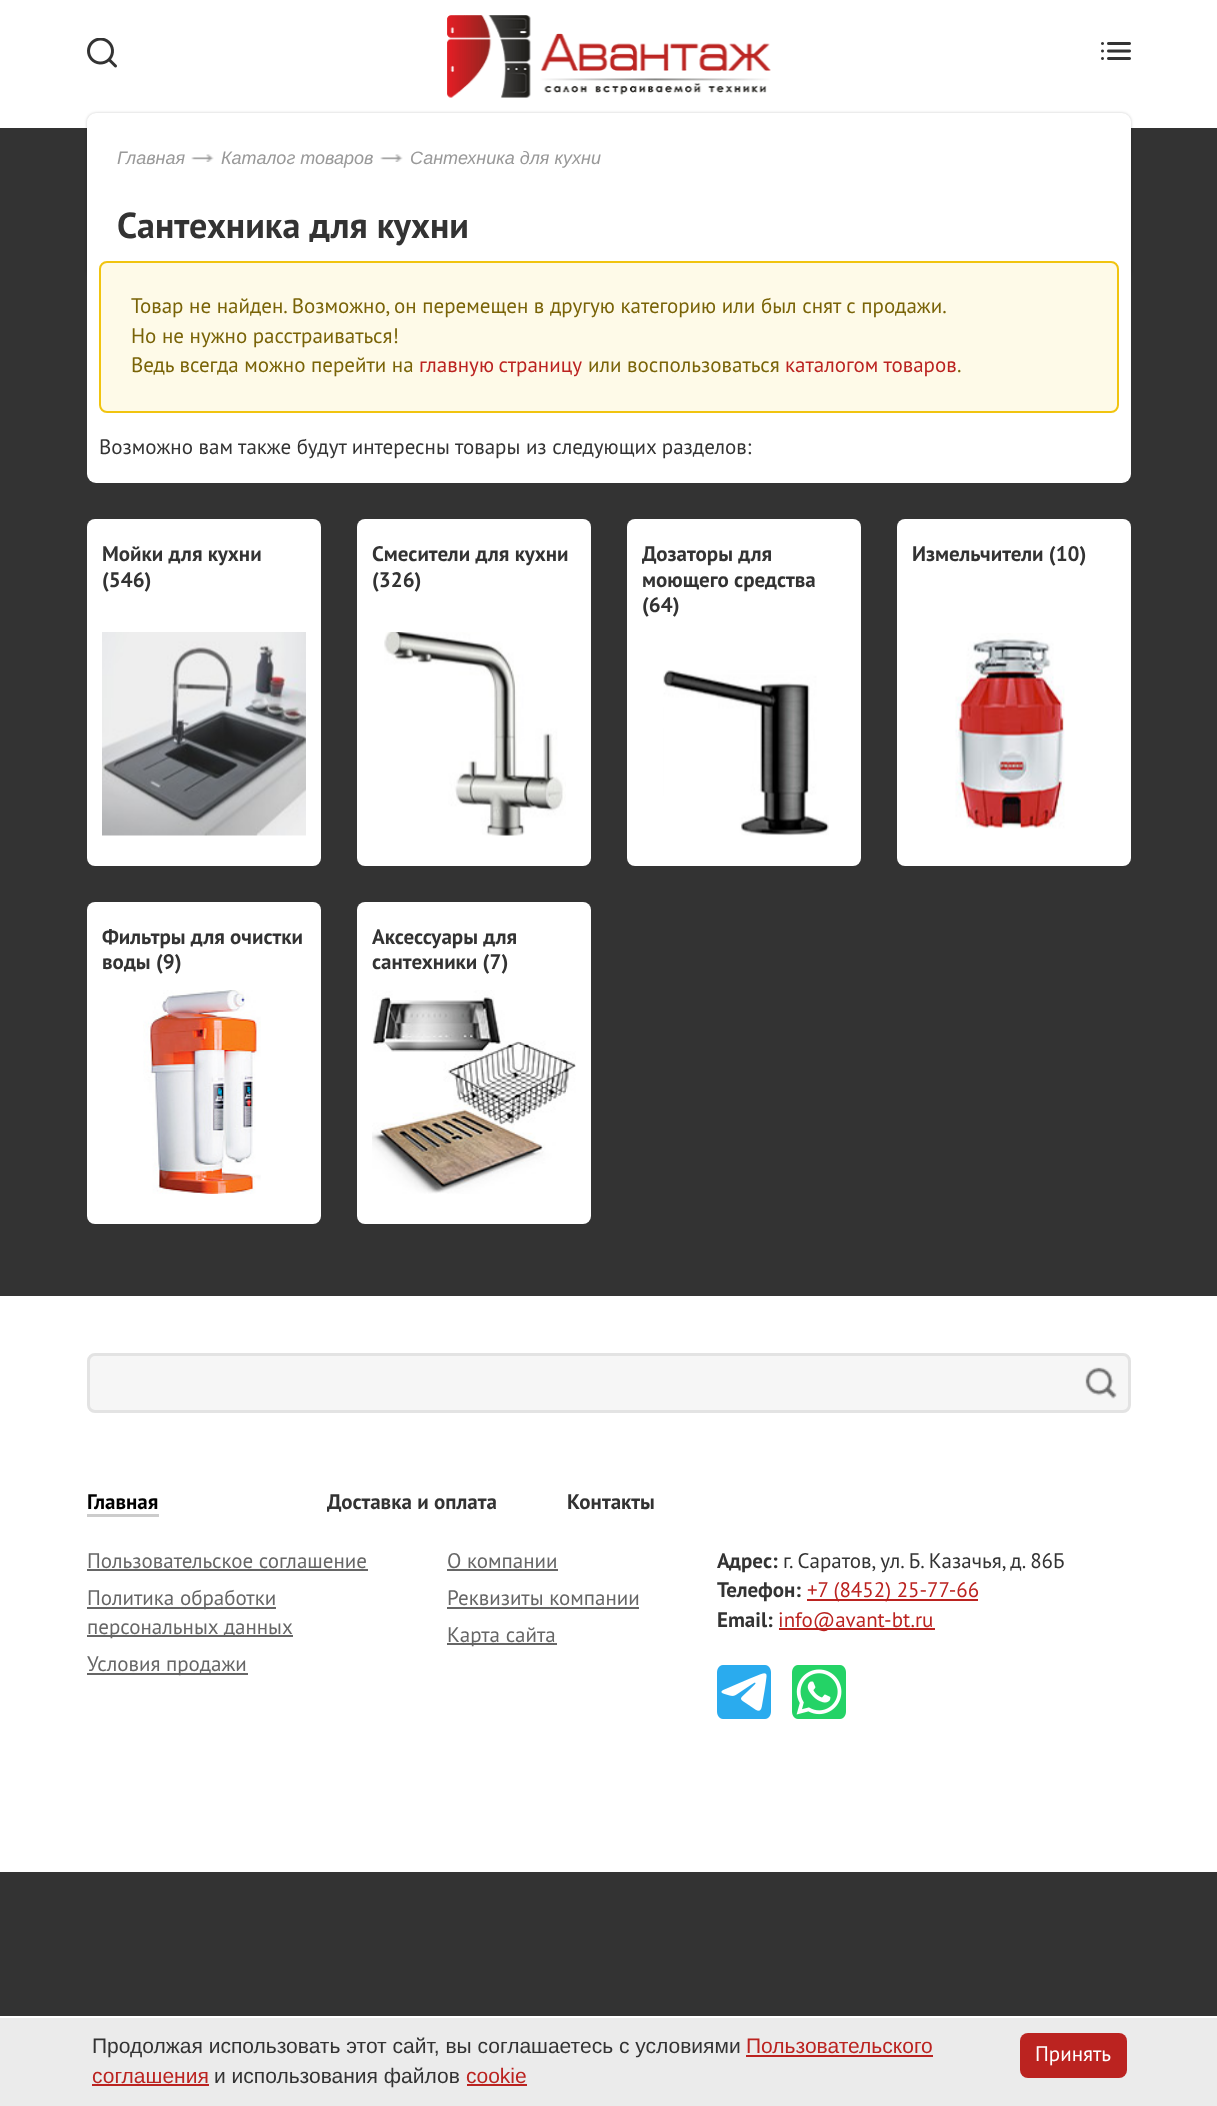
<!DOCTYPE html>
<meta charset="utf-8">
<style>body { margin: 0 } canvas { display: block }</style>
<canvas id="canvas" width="1217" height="2106"></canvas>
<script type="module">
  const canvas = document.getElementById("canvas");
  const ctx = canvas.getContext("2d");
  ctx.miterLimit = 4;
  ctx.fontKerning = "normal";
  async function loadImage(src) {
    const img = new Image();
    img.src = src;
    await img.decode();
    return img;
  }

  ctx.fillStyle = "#333333";
  ctx.fillRect(0, 0, 1217, 2106);
  ctx.fillStyle = "#ffffff";
  ctx.fillRect(0, 0, 1217, 128);
  ctx.drawImage(await loadImage("img1.png"), 87, 38, 30, 30);
  ctx.drawImage(await loadImage("img2.png"), 447, 15, 324, 83);
  ctx.drawImage(await loadImage("img3.png"), 1101, 42, 30, 18);
  ctx.fillStyle = "rgba(0, 0, 0, 0.2)";
  ctx.filter = "blur(1.5px)";
  ctx.beginPath();
  ctx.roundRect(87, 113, 1044, 166, 9);
  ctx.fill();
  ctx.filter = "none";
  ctx.fillStyle = "#ffffff";
  ctx.beginPath();
  ctx.roundRect(87, 113, 1044, 166, 9);
  ctx.fill();
  ctx.font = "italic 18px Liberation Sans";
  ctx.fillStyle = "#999999";
  ctx.fillText("Главная", 117, 164);
  ctx.drawImage(await loadImage("img4.png"), 191, 154, 23, 8);
  ctx.fillText("Каталог товаров", 221, 164);
  ctx.drawImage(await loadImage("img4.png"), 380, 154, 23, 8);
  ctx.fillText("Сантехника для кухни", 410, 164);
  ctx.font = "bold 36px PT Sans";
  ctx.fillStyle = "#333333";
  ctx.fillText("Сантехника для кухни", 117, 238);
  ctx.fillStyle = "#ffffff";
  ctx.beginPath();
  ctx.roundRect(87, 261, 1044, 222, 9);
  ctx.fill();
  ctx.fillStyle = "#fefae8";
  ctx.beginPath();
  ctx.roundRect(100, 262, 1018, 150, 7);
  ctx.fill();
  ctx.strokeStyle = "#f1c40f";
  ctx.lineWidth = 2;
  ctx.stroke();
  ctx.font = "21px PT Sans";
  ctx.fillStyle = "#796307";
  ctx.fillText("Товар не найден. Возможно, он перемещен в другую категорию или был снят с продажи.", 131, 313);
  ctx.fillText("Но не нужно расстраиваться!", 131, 343);
  ctx.fillText("Ведь всегда можно перейти на", 131, 372);
  ctx.wordSpacing = "-1px";
  ctx.fillStyle = "#bb2320";
  ctx.fillText("главную страницу", 419, 372);
  ctx.wordSpacing = "0px";
  ctx.fillStyle = "#796307";
  ctx.fillText("или воспользоваться", 588, 372);
  ctx.fillStyle = "#bb2320";
  ctx.fillText("каталогом товаров", 785, 372);
  ctx.fillStyle = "#796307";
  ctx.fillText(".", 957, 372);
  ctx.fillStyle = "#333333";
  ctx.fillText("Возможно вам также будут интересны товары из следующих разделов:", 99, 454);
  ctx.fillStyle = "#ffffff";
  ctx.beginPath();
  ctx.roundRect(87, 519, 234, 347, 8);
  ctx.fill();
  ctx.font = "bold 21px PT Sans";
  ctx.fillStyle = "#333333";
  ctx.fillText("Мойки для кухни", 102, 561);
  ctx.fillText("(546)", 102, 587);
  ctx.drawImage(await loadImage("img5.png"), 102, 632, 204, 204);
  ctx.fillStyle = "#ffffff";
  ctx.beginPath();
  ctx.roundRect(357, 519, 234, 347, 8);
  ctx.fill();
  ctx.fillStyle = "#333333";
  ctx.fillText("Смесители для кухни", 372, 561);
  ctx.fillText("(326)", 372, 587);
  ctx.drawImage(await loadImage("img6.png"), 384, 632, 182, 204);
  ctx.fillStyle = "#ffffff";
  ctx.beginPath();
  ctx.roundRect(627, 519, 234, 347, 8);
  ctx.fill();
  ctx.fillStyle = "#333333";
  ctx.fillText("Дозаторы для", 642, 561);
  ctx.fillText("моющего средства", 642, 587);
  ctx.fillText("(64)", 642, 612);
  ctx.drawImage(await loadImage("img7.png"), 663, 670, 166, 166);
  ctx.fillStyle = "#ffffff";
  ctx.beginPath();
  ctx.roundRect(897, 519, 234, 347, 8);
  ctx.fill();
  ctx.fillStyle = "#333333";
  ctx.fillText("Измельчители (10)", 912, 561);
  ctx.drawImage(await loadImage("img8.png"), 955, 633, 110, 196);
  ctx.fillStyle = "#ffffff";
  ctx.beginPath();
  ctx.roundRect(87, 902, 234, 322, 8);
  ctx.fill();
  ctx.fillStyle = "#333333";
  ctx.fillText("Фильтры для очистки", 102, 944);
  ctx.fillText("воды (9)", 102, 969);
  ctx.drawImage(await loadImage("img9.png"), 143, 990, 118, 204);
  ctx.fillStyle = "#ffffff";
  ctx.beginPath();
  ctx.roundRect(357, 902, 234, 322, 8);
  ctx.fill();
  ctx.fillStyle = "#333333";
  ctx.fillText("Аксессуары для", 372, 944);
  ctx.fillText("сантехники (7)", 372, 969);
  ctx.drawImage(await loadImage("img10.png"), 372, 990, 204, 204);
  ctx.fillStyle = "#ffffff";
  ctx.fillRect(0, 1296, 1217, 576);
  ctx.fillStyle = "#f6f6f6";
  ctx.beginPath();
  ctx.roundRect(88.5, 1354.5, 1041, 57, 6.5);
  ctx.fill();
  ctx.strokeStyle = "#e3e3e3";
  ctx.lineWidth = 3;
  ctx.stroke();
  ctx.drawImage(await loadImage("img11.png"), 1085, 1367, 32, 32);
  ctx.fillStyle = "#cccccc";
  ctx.fillRect(87, 1514, 72, 3);
  ctx.fillStyle = "#000000";
  ctx.fillText("Главная", 87, 1509);
  ctx.fillStyle = "#333333";
  ctx.fillText("Доставка и оплата", 327, 1509);
  ctx.fillText("Контакты", 567, 1509);
  ctx.font = "21px PT Sans";
  ctx.fillStyle = "#666666";
  ctx.fillText("Пользовательское соглашение", 87, 1568);
  ctx.fillRect(87, 1569, 281, 2);
  ctx.fillRect(87, 1607, 189, 2);
  ctx.fillText("Политика обработки", 87, 1605);
  ctx.fillRect(87, 1635, 206, 2);
  ctx.fillText("персональных данных", 87, 1634);
  ctx.fillRect(87, 1673, 161, 2);
  ctx.fillText("Условия продажи", 87, 1671);
  ctx.fillText("О компании", 447, 1568);
  ctx.fillRect(447, 1569, 111, 2);
  ctx.fillText("Реквизиты компании", 447, 1605);
  ctx.fillRect(447, 1607, 192, 2);
  ctx.fillRect(447, 1643, 110, 2);
  ctx.fillText("Карта сайта", 447, 1642);
  ctx.font = "bold 21px PT Sans";
  ctx.fillStyle = "#333333";
  ctx.fillText("Адрес:", 717, 1568);
  ctx.font = "21px PT Sans";
  ctx.fillText("г. Саратов, ул. Б. Казачья, д. 86Б", 783, 1568);
  ctx.font = "bold 21px PT Sans";
  ctx.fillText("Телефон:", 717, 1597);
  ctx.fillStyle = "#bb2320";
  ctx.fillRect(807, 1599, 171, 2);
  ctx.font = "21px PT Sans";
  ctx.fillText("+7 (8452) 25-77-66", 807, 1597);
  ctx.font = "bold 21px PT Sans";
  ctx.fillStyle = "#333333";
  ctx.fillText("Email:", 717, 1627);
  ctx.fillStyle = "#bb2320";
  ctx.fillRect(779, 1628, 156, 2);
  ctx.font = "21px PT Sans";
  ctx.fillText("info@avant-bt.ru", 778, 1627);
  ctx.drawImage(await loadImage("img12.png"), 717, 1665, 54, 54);
  ctx.drawImage(await loadImage("img13.png"), 792, 1665, 54, 54);
  ctx.fillStyle = "#ffffff";
  ctx.fillRect(0, 2016, 1217, 2);
  ctx.fillStyle = "#ebebeb";
  ctx.fillRect(0, 2018, 1217, 88);
  ctx.font = "21px Liberation Sans";
  ctx.fillStyle = "#333333";
  ctx.fillText("Продолжая использовать этот сайт, вы соглашаетесь с условиями", 92, 2053);
  ctx.fillStyle = "#bb2320";
  ctx.fillText("Пользовательского", 746, 2053);
  ctx.fillRect(746, 2055, 187, 2);
  ctx.fillText("соглашения", 92, 2083);
  ctx.fillRect(92, 2084, 117, 2);
  ctx.fillStyle = "#333333";
  ctx.fillText("и использования файлов", 214, 2083);
  ctx.fillStyle = "#bb2320";
  ctx.fillText("cookie", 466, 2083);
  ctx.fillRect(467, 2084, 60, 2);
  ctx.beginPath();
  ctx.roundRect(1020, 2033, 107, 45, 8);
  ctx.fill();
  ctx.font = "21px PT Sans";
  ctx.fillStyle = "#ffffff";
  ctx.fillText("Принять", 1035, 2061);
</script>
